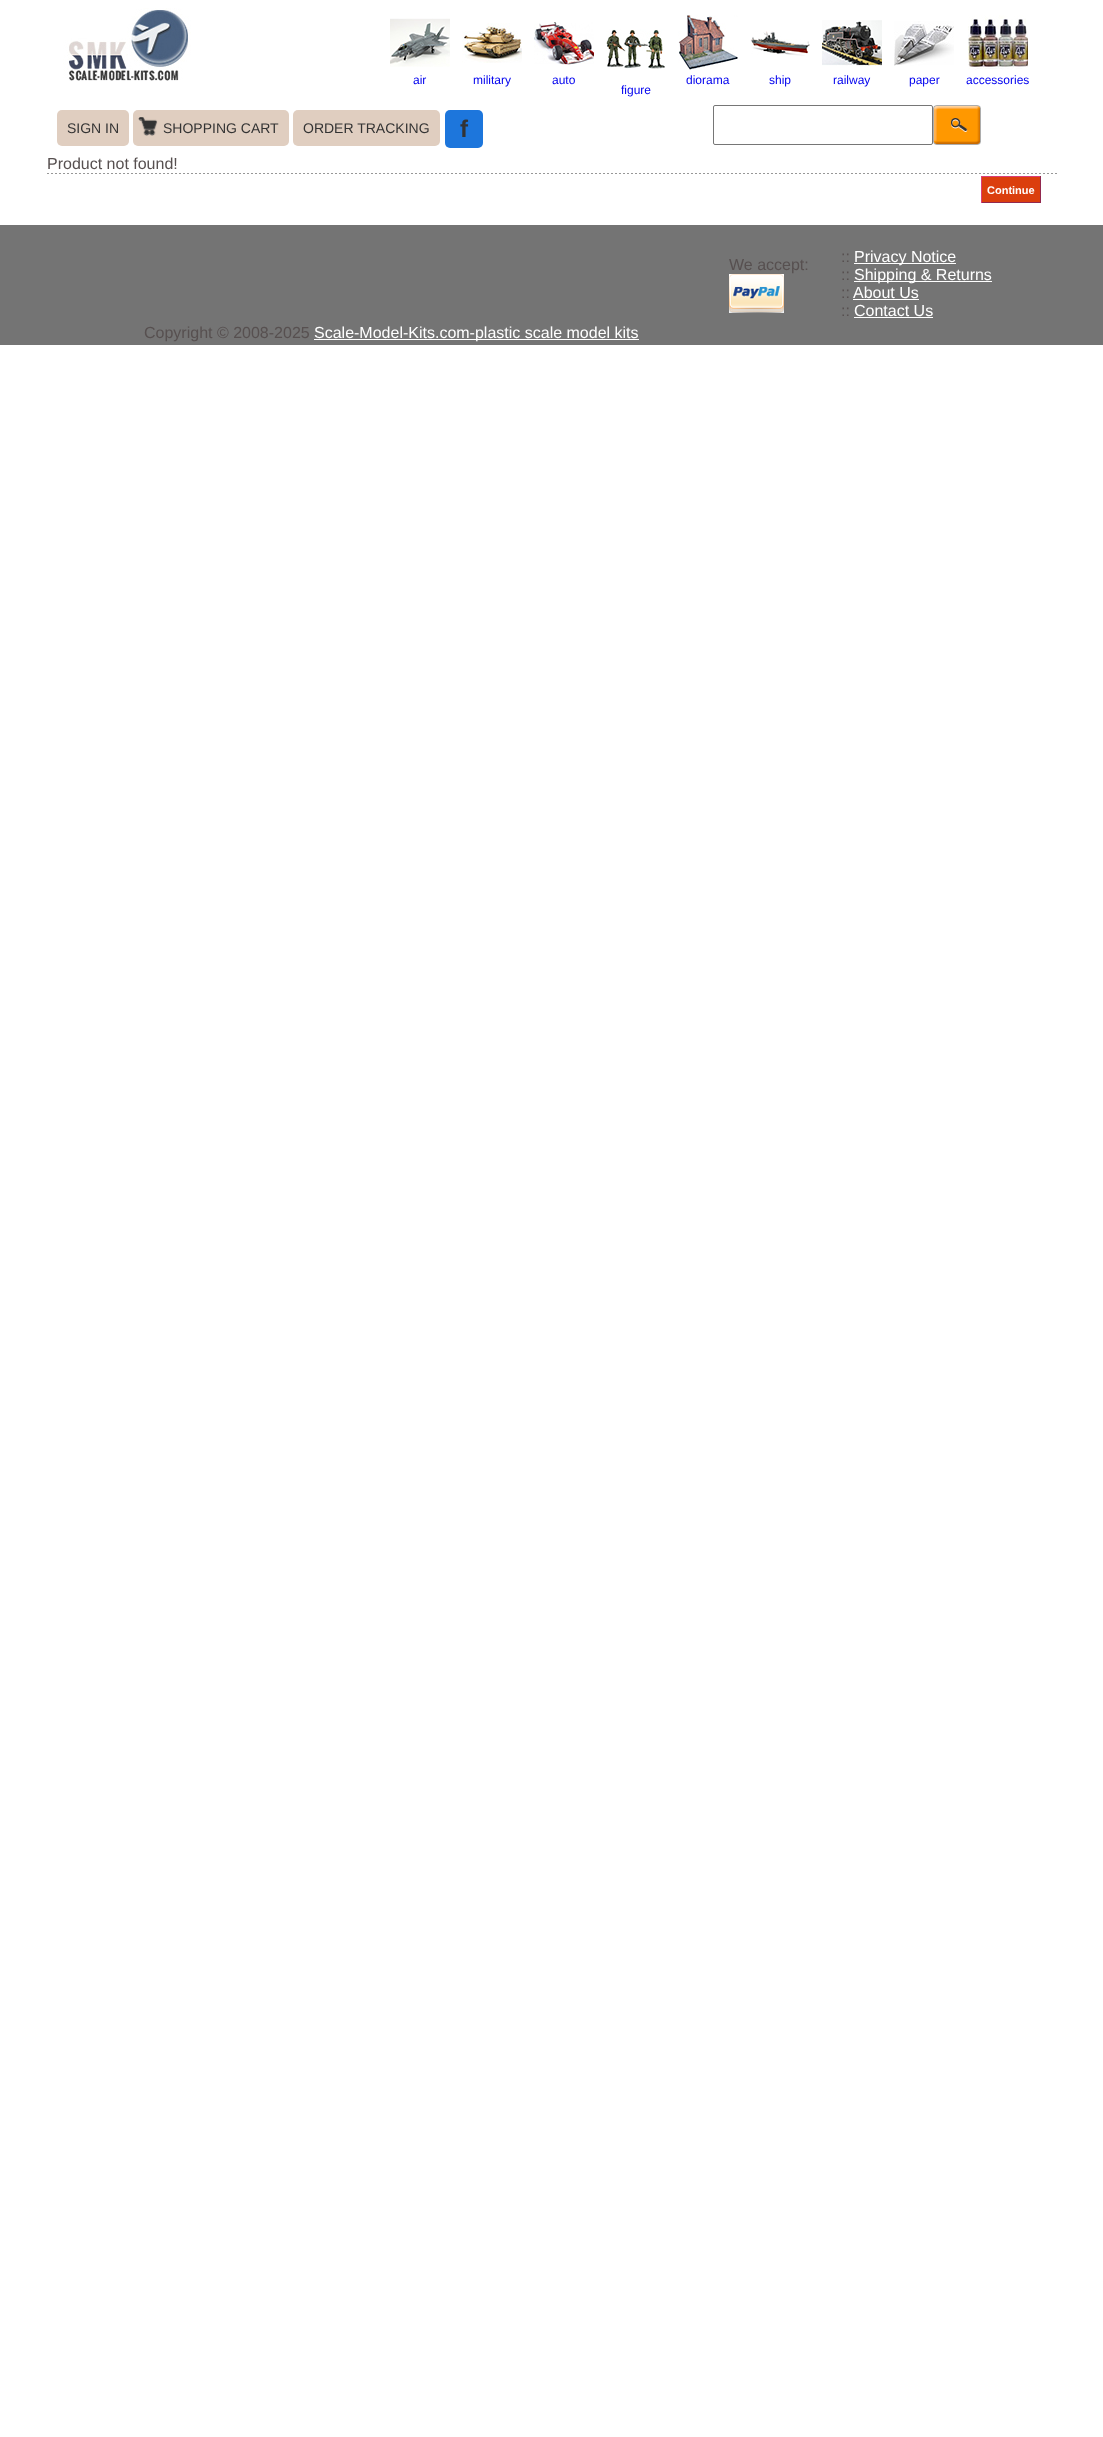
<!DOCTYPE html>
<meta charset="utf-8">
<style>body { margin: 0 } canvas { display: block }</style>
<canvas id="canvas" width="1103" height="2437"></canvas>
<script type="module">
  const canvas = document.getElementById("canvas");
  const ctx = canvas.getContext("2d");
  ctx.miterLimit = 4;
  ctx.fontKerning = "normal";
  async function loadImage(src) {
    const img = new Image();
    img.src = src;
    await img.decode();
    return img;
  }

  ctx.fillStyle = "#ffffff";
  ctx.fillRect(0, 0, 1103, 2437);
  ctx.drawImage(await loadImage("img1.png"), 63, 8, 128, 73);
  ctx.drawImage(await loadImage("img2.png"), 390, 18, 60, 49);
  ctx.font = "12px Liberation Sans";
  ctx.fillStyle = "#0000ee";
  ctx.fillText("air", 413, 84);
  ctx.drawImage(await loadImage("img3.png"), 462, 23, 60, 40);
  ctx.fillText("military", 473, 84);
  ctx.drawImage(await loadImage("img4.png"), 534, 22, 60, 43);
  ctx.fillText("auto", 552, 84);
  ctx.drawImage(await loadImage("img5.png"), 678, 15, 60, 55);
  ctx.fillText("diorama", 686, 84);
  ctx.drawImage(await loadImage("img6.png"), 750, 31, 60, 25);
  ctx.fillText("ship", 769, 84);
  ctx.drawImage(await loadImage("img7.png"), 822, 20, 60, 46);
  ctx.fillText("railway", 833, 84);
  ctx.drawImage(await loadImage("img8.png"), 894, 21, 60, 45);
  ctx.fillText("paper", 909, 84);
  ctx.drawImage(await loadImage("img9.png"), 968, 15, 60, 55);
  ctx.fillText("accessories", 966, 84);
  ctx.drawImage(await loadImage("img10.png"), 606, 29, 59, 40);
  ctx.fillText("figure", 621, 94);
  ctx.fillStyle = "#e0cec0";
  ctx.beginPath();
  ctx.roundRect(57, 110, 72, 36, 5);
  ctx.fill();
  ctx.font = "14px Liberation Sans";
  ctx.fillStyle = "#333333";
  ctx.fillText("SIGN IN", 67, 133);
  ctx.fillStyle = "#e0cec0";
  ctx.beginPath();
  ctx.roundRect(133, 110, 156, 36, 5);
  ctx.fill();
  ctx.drawImage(await loadImage("img11.png"), 138, 117, 20, 19);
  ctx.fillStyle = "#333333";
  ctx.fillText("SHOPPING CART", 163, 133);
  ctx.fillStyle = "#e0cec0";
  ctx.beginPath();
  ctx.roundRect(293, 110, 147, 36, 5);
  ctx.fill();
  ctx.fillStyle = "#333333";
  ctx.fillText("ORDER TRACKING", 303, 133);
  ctx.fillStyle = "#1d76dc";
  ctx.beginPath();
  ctx.roundRect(445, 110, 38, 38, 5);
  ctx.fill();
  ctx.font = "bold 24px Liberation Sans";
  ctx.fillStyle = "#333333";
  ctx.fillText("f", 460, 137);
  ctx.beginPath();
  ctx.roundRect(713.5, 105.5, 219, 39, 1.5);
  ctx.strokeStyle = "#767676";
  ctx.stroke();
  ctx.drawImage(await loadImage("img12.png"), 933, 105, 48, 40);
  ctx.font = "16px Liberation Sans";
  ctx.fillStyle = "#575050";
  ctx.fillText("Product not found!", 47, 169);
  ctx.drawImage(await loadImage("img13.png"), 47, 173, 1010, 1);
  ctx.fillStyle = "#db3e0d";
  ctx.fillRect(982, 177, 58, 25);
  ctx.fillStyle = "#db3e76";
  ctx.fillRect(981, 176, 60, 1);
  ctx.fillStyle = "#92294f";
  ctx.fillRect(1040, 176, 1, 27);
  ctx.fillRect(981, 202, 60, 1);
  ctx.fillStyle = "#db3e76";
  ctx.fillRect(981, 176, 1, 27);
  ctx.font = "bold 11px Liberation Sans";
  ctx.fillStyle = "#ffffff";
  ctx.fillText("Continue", 987, 194);
  ctx.fillStyle = "#747474";
  ctx.fillRect(0, 225, 1103, 120);
  ctx.font = "16px Liberation Sans";
  ctx.fillStyle = "#575050";
  ctx.fillText("We accept:", 729, 270);
  ctx.drawImage(await loadImage("img14.png"), 729, 274, 55, 39);
  ctx.fillText("::", 841, 262);
  ctx.fillStyle = "#ffffff";
  ctx.fillRect(854, 263, 102, 1);
  ctx.fillText("Privacy Notice", 854, 262);
  ctx.fillStyle = "#575050";
  ctx.fillText("::", 841, 280);
  ctx.fillStyle = "#ffffff";
  ctx.fillRect(854, 281, 138, 1);
  ctx.fillText("Shipping & Returns", 854, 280);
  ctx.fillStyle = "#575050";
  ctx.fillText("::", 841, 298);
  ctx.fillStyle = "#ffffff";
  ctx.fillText("About Us", 853, 298);
  ctx.fillRect(853, 299, 66, 1);
  ctx.fillStyle = "#575050";
  ctx.fillText("::", 841, 316);
  ctx.fillStyle = "#ffffff";
  ctx.fillText("Contact Us", 854, 316);
  ctx.fillRect(854, 317, 79, 1);
  ctx.fillStyle = "#575050";
  ctx.fillText("Copyright © 2008-2025", 144, 338);
  ctx.fillStyle = "#ffffff";
  ctx.fillRect(314, 339, 325, 1);
  ctx.fillText("Scale-Model-Kits.com-plastic scale model kits", 314, 338);
</script>
